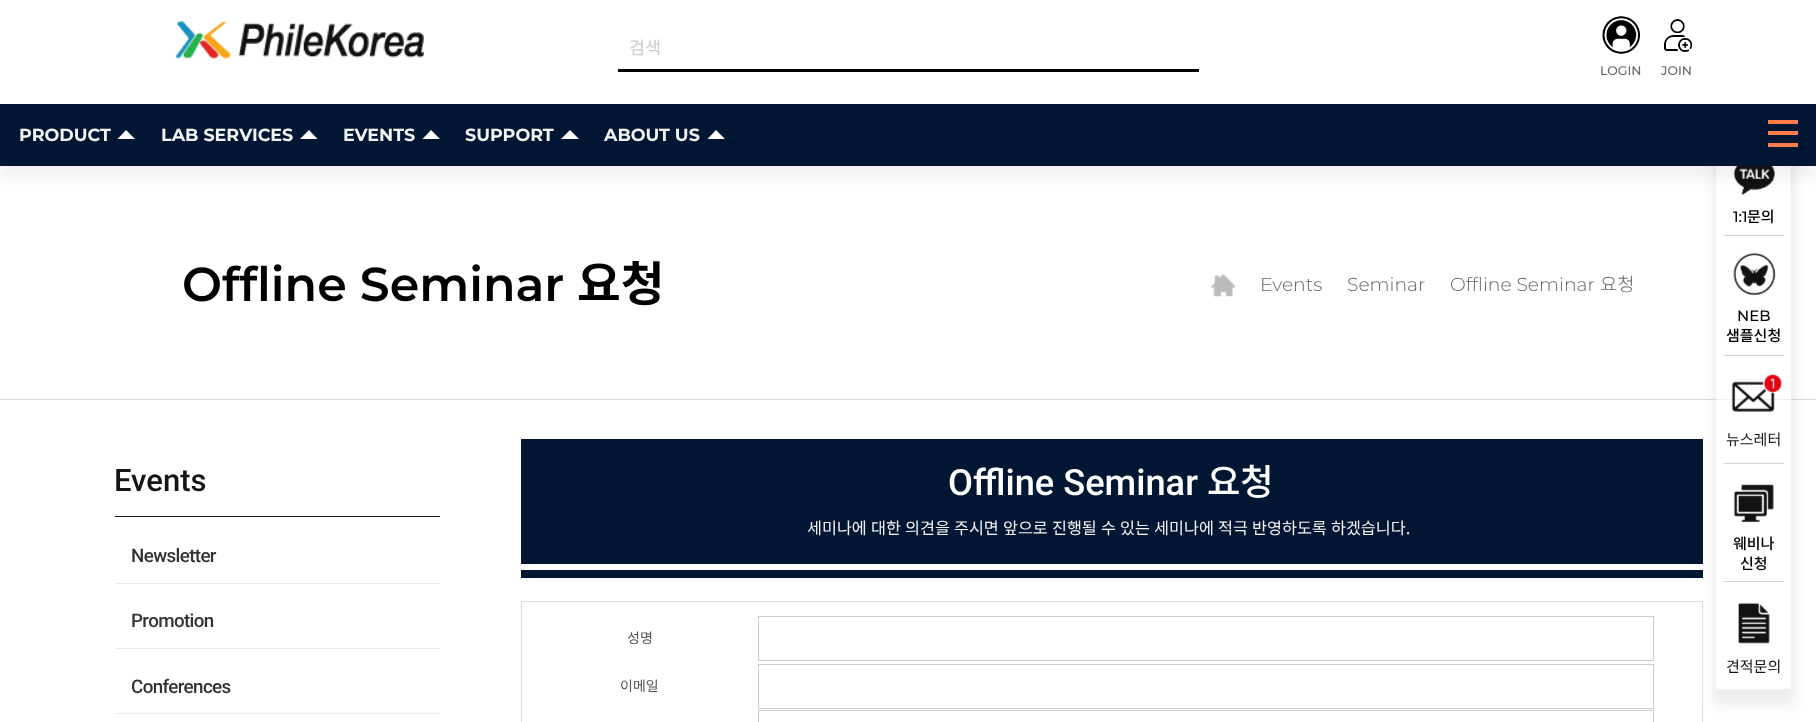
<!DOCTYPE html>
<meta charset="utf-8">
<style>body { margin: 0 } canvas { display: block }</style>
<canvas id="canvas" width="1816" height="722"></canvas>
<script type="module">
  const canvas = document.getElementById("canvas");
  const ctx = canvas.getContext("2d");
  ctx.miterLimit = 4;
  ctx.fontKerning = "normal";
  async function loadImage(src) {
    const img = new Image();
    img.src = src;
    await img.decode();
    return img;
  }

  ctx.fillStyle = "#ffffff";
  ctx.fillRect(0, 0, 1816, 722);
  ctx.drawImage(await loadImage("img1.png"), 176, 21, 248, 38);
  ctx.fillStyle = "#000000";
  ctx.fillRect(618, 69, 581, 3);
  ctx.font = "17.5px Noto Sans KR";
  ctx.fillStyle = "#cacaca";
  ctx.fillText("검색", 629, 54);
  ctx.drawImage(await loadImage("img2.png"), 1602, 16, 38, 38);
  ctx.font = "500 12.5px Montserrat";
  ctx.fillStyle = "#666666";
  ctx.fillText("LOGIN", 1600, 75);
  ctx.drawImage(await loadImage("img3.png"), 1664, 19, 28, 33);
  ctx.fillText("JOIN", 1661, 75);
  ctx.fillStyle = "#dddddd";
  ctx.fillRect(0, 399, 1816, 1);
  ctx.fillStyle = "#001632";
  ctx.fillRect(521, 439, 1182, 125);
  ctx.fillRect(521, 570, 1182, 8);
  ctx.strokeStyle = "#dddddd";
  ctx.strokeRect(521.5, 601.5, 1181, 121);
  ctx.save();
  ctx.beginPath();
  ctx.moveTo(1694, 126);
  ctx.lineTo(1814, 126);
  ctx.lineTo(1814, 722);
  ctx.lineTo(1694, 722);
  ctx.closePath();
  ctx.moveTo(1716, 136);
  ctx.lineTo(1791, 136);
  ctx.lineTo(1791, 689);
  ctx.lineTo(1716, 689);
  ctx.closePath();
  ctx.clip("evenodd");
  ctx.fillStyle = "rgba(0, 0, 0, 0.07)";
  ctx.filter = "blur(6px)";
  ctx.beginPath();
  ctx.rect(1713, 145, 82, 560);
  ctx.fill();
  ctx.filter = "none";
  ctx.restore();
  ctx.drawImage(await loadImage("img5.png"), 1733, 166, 42, 29);
  ctx.fillStyle = "rgba(0, 0, 0, 0.05)";
  ctx.filter = "blur(6px)";
  ctx.beginPath();
  ctx.rect(0, 116, 1816, 63);
  ctx.fill();
  ctx.filter = "none";
  ctx.fillStyle = "#001632";
  ctx.fillRect(0, 104, 1816, 62);
  ctx.font = "bold 17.5px Montserrat";
  ctx.fillStyle = "#f2f2f2";
  ctx.fillText("PRODUCT", 19, 141);
  ctx.fillStyle = "#ffffff";
  ctx.beginPath();
  ctx.moveTo(135, 139);
  ctx.lineTo(117.5, 139);
  ctx.lineTo(126, 130);
  ctx.closePath();
  ctx.fill();
  ctx.fillStyle = "#f2f2f2";
  ctx.fillText("LAB SERVICES", 161, 141);
  ctx.fillStyle = "#ffffff";
  ctx.beginPath();
  ctx.moveTo(317.5, 139);
  ctx.lineTo(300, 139);
  ctx.lineTo(309, 130);
  ctx.closePath();
  ctx.fill();
  ctx.fillStyle = "#f2f2f2";
  ctx.fillText("EVENTS", 343, 141);
  ctx.fillStyle = "#ffffff";
  ctx.beginPath();
  ctx.moveTo(440, 139);
  ctx.lineTo(422.5, 139);
  ctx.lineTo(431, 130);
  ctx.closePath();
  ctx.fill();
  ctx.fillStyle = "#f2f2f2";
  ctx.fillText("SUPPORT", 465, 141);
  ctx.fillStyle = "#ffffff";
  ctx.beginPath();
  ctx.moveTo(579, 139);
  ctx.lineTo(561, 139);
  ctx.lineTo(570, 130);
  ctx.closePath();
  ctx.fill();
  ctx.fillStyle = "#f2f2f2";
  ctx.fillText("ABOUT US", 604, 141);
  ctx.fillStyle = "#ffffff";
  ctx.beginPath();
  ctx.moveTo(725, 139);
  ctx.lineTo(707.5, 139);
  ctx.lineTo(716, 130);
  ctx.closePath();
  ctx.fill();
  ctx.fillStyle = "#ff7d4d";
  ctx.fillRect(1768, 120, 30, 4);
  ctx.fillRect(1768, 131, 30, 4);
  ctx.fillRect(1768, 143, 30, 4);
  ctx.font = "600 47.5px Montserrat";
  ctx.fillStyle = "#000000";
  ctx.fillText("Offline Seminar", 182, 301);
  ctx.font = "bold 47.5px Noto Sans KR";
  ctx.fillText("요청", 577, 301);
  ctx.drawImage(await loadImage("img4.png"), 1210, 274, 25, 23);
  ctx.font = "300 18.75px Montserrat";
  ctx.fillStyle = "#666666";
  ctx.fillText("Events", 1260, 291);
  ctx.fillText("Seminar", 1347, 291);
  ctx.fillText("Offline Seminar", 1450, 291);
  ctx.font = "300 18.75px Noto Sans KR";
  ctx.fillText("요청", 1600, 291);
  ctx.fillStyle = "rgba(255, 255, 255, 0.5)";
  ctx.fillRect(1716, 399, 75, 290);
  ctx.font = "500 15px Montserrat";
  ctx.fillStyle = "#000000";
  ctx.fillText("1:1", 1733, 222);
  ctx.font = "500 15px Noto Sans KR";
  ctx.fillText("문의", 1747, 222);
  ctx.fillStyle = "#d2d2d2";
  ctx.fillRect(1724, 235, 60, 1);
  ctx.drawImage(await loadImage("img6.png"), 1733, 252, 43, 44);
  ctx.font = "500 15px Montserrat";
  ctx.fillStyle = "#000000";
  ctx.fillText("NEB", 1737, 321);
  ctx.font = "500 15px Noto Sans KR";
  ctx.fillText("샘플신청", 1726, 341);
  ctx.fillStyle = "#d2d2d2";
  ctx.fillRect(1724, 355, 60, 1);
  ctx.drawImage(await loadImage("img7.png"), 1731, 374, 51, 38);
  ctx.font = "15px Noto Sans KR";
  ctx.fillStyle = "#151515";
  ctx.fillText("뉴스레터", 1726, 445);
  ctx.fillStyle = "#d2d2d2";
  ctx.fillRect(1724, 463, 60, 1);
  ctx.drawImage(await loadImage("img8.png"), 1733, 484, 41, 39);
  ctx.font = "500 15px Noto Sans KR";
  ctx.fillStyle = "#000000";
  ctx.fillText("웨비나", 1733, 549);
  ctx.fillText("신청", 1740, 569);
  ctx.fillStyle = "#d2d2d2";
  ctx.fillRect(1724, 581, 60, 1);
  ctx.drawImage(await loadImage("img9.png"), 1737, 602, 33, 42);
  ctx.font = "15px Noto Sans KR";
  ctx.fillStyle = "#151515";
  ctx.fillText("견적문의", 1726, 672);
  ctx.fillRect(115, 516, 325, 1);
  ctx.font = "500 31px Roboto";
  ctx.fillText("Events", 114, 491);
  ctx.fillStyle = "#e8ebf1";
  ctx.fillRect(115, 583, 325, 1);
  ctx.letterSpacing = "-0.6px";
  ctx.font = "500 18.75px Roboto";
  ctx.fillStyle = "#333333";
  ctx.fillText("Newsletter", 131, 562);
  ctx.fillStyle = "#e8ebf1";
  ctx.fillRect(115, 648, 325, 1);
  ctx.fillStyle = "#333333";
  ctx.fillText("Promotion", 131, 627);
  ctx.fillStyle = "#e8ebf1";
  ctx.fillRect(115, 713, 325, 1);
  ctx.fillStyle = "#333333";
  ctx.fillText("Conferences", 131, 693);
  ctx.letterSpacing = "0px";
  ctx.font = "500 36.25px Roboto";
  ctx.fillStyle = "#ffffff";
  ctx.fillText("Offline Seminar", 948, 495);
  ctx.font = "500 36.25px Noto Sans KR";
  ctx.fillText("요청", 1207, 495);
  ctx.wordSpacing = "0.5px";
  ctx.font = "16.25px Noto Sans KR";
  ctx.fillStyle = "#f2f2f2";
  ctx.fillText("세미나에 대한 의견을 주시면 앞으로 진행될 수 있는 세미나에 적극 반영하도록 하겠습니다.", 807, 534);
  ctx.wordSpacing = "0px";
  ctx.font = "14px Noto Sans KR";
  ctx.fillStyle = "#555555";
  ctx.fillText("성명", 627, 643);
  ctx.strokeStyle = "#cccccc";
  ctx.strokeRect(758.5, 616.5, 895, 44);
  ctx.fillText("이메일", 620, 691);
  ctx.strokeRect(758.5, 664.5, 895, 44);
  ctx.strokeRect(758.5, 710.5, 895, 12);
</script>
